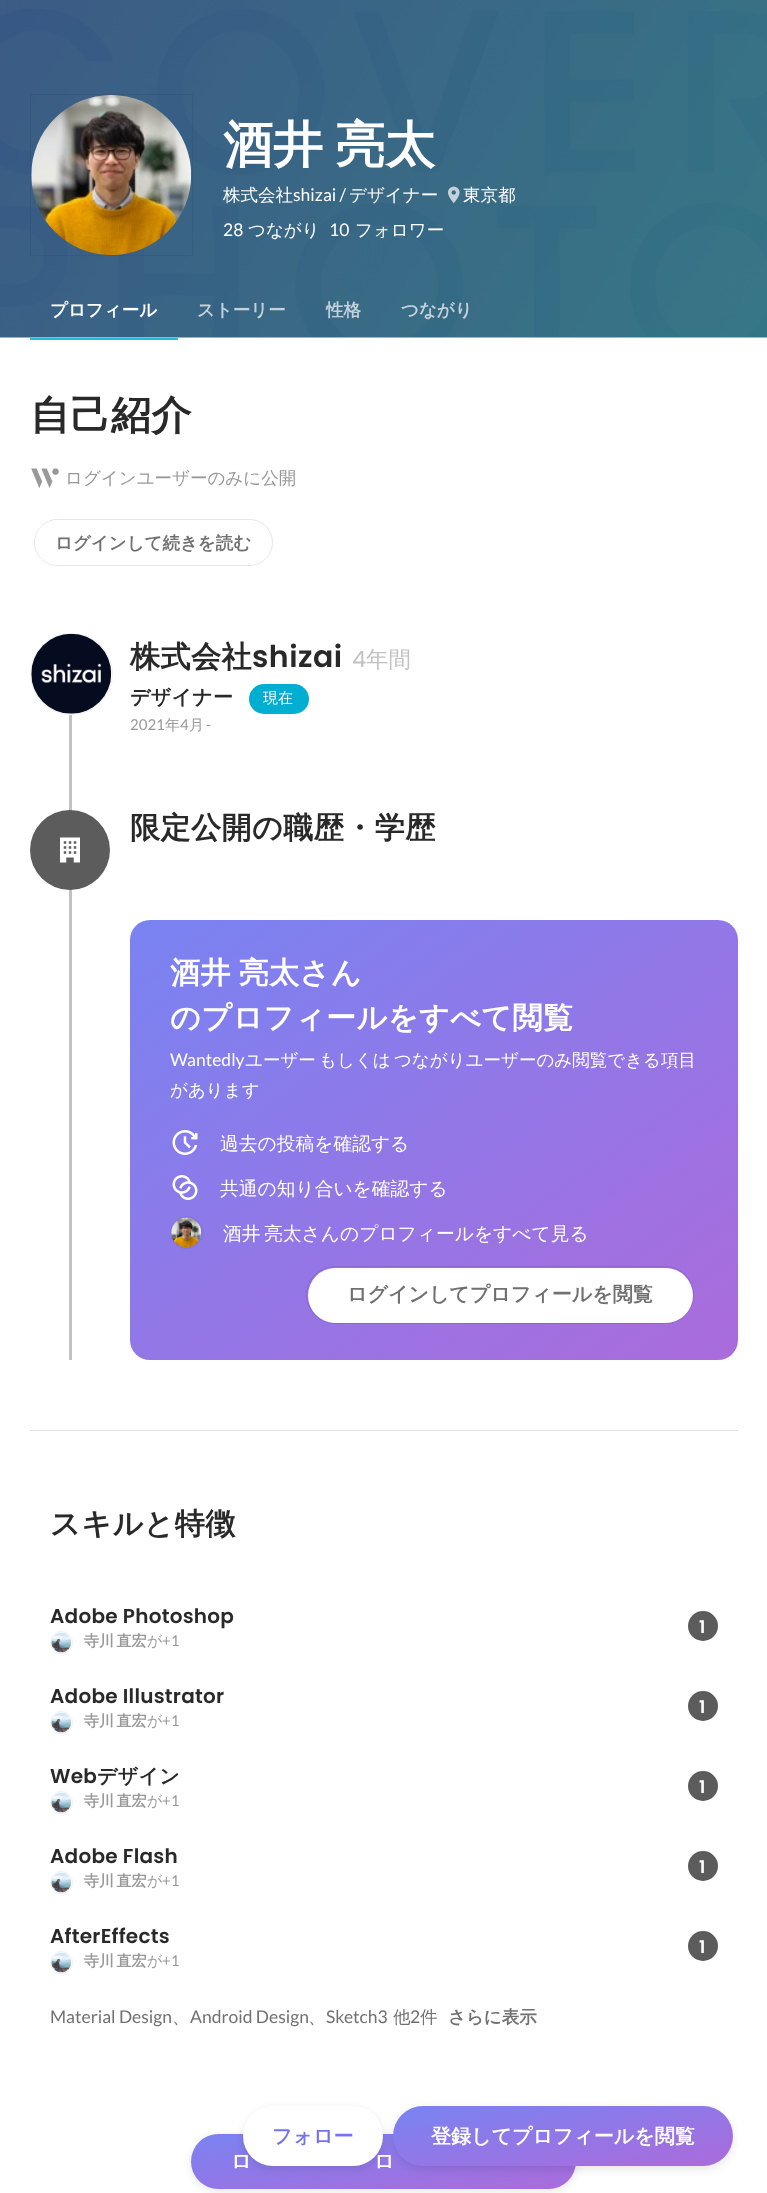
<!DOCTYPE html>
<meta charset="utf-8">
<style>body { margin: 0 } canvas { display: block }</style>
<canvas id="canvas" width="767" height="2193"></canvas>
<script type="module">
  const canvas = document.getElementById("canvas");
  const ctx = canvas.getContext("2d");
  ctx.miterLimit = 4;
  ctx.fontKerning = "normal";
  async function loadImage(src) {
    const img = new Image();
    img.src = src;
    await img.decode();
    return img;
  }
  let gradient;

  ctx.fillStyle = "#ffffff";
  ctx.fillRect(0, 0, 767, 2193);
  ctx.drawImage(await loadImage("img1.png"), 0, 0, 767, 338);
  ctx.strokeStyle = "rgba(0, 0, 0, 0.06)";
  ctx.strokeRect(30.5, 94.5, 162, 161);
  ctx.drawImage(await loadImage("img2.png"), 31, 95, 161, 160);
  ctx.wordSpacing = "-3px";
  ctx.font = "bold 50px WenQuanYi Zen Hei";
  ctx.fillText("酒井 亮太", 223, 162);
  ctx.wordSpacing = "0px";
  ctx.font = "500 17.5px WenQuanYi Zen Hei";
  ctx.fillText("株式会社", 223, 201);
  ctx.font = "17.5px Lato";
  ctx.fillText("shizai /", 293, 201);
  ctx.font = "500 17.5px WenQuanYi Zen Hei";
  ctx.fillText("デザイナー", 349, 201);
  ctx.drawImage(await loadImage("img3.png"), 447, 186, 13, 18);
  ctx.fillText("東京都", 463, 201);
  ctx.font = "17.5px Lato";
  ctx.fillText("28", 223, 236);
  ctx.font = "500 17.5px WenQuanYi Zen Hei";
  ctx.fillText("つながり", 248, 236);
  ctx.font = "17.5px Lato";
  ctx.fillText("10", 329, 236);
  ctx.font = "500 17.5px WenQuanYi Zen Hei";
  ctx.fillText("フォロワー", 355, 236);
  ctx.fillStyle = "#21bddb";
  ctx.fillRect(30, 338, 148, 2);
  ctx.font = "bold 17.5px WenQuanYi Zen Hei";
  ctx.fillStyle = "#ffffff";
  ctx.fillText("プロフィール", 50, 316);
  ctx.fillStyle = "#c4d1da";
  ctx.fillText("ストーリー", 197, 316);
  ctx.fillText("性格", 326, 316);
  ctx.fillText("つながり", 401, 316);
  ctx.fillStyle = "rgba(0, 0, 0, 0.1)";
  ctx.filter = "blur(4px)";
  ctx.beginPath();
  ctx.roundRect(191, 2136, 385, 55, 27.5);
  ctx.fill();
  ctx.filter = "none";
  gradient = ctx.createLinearGradient(376, 2107, 391, 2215);
  gradient.addColorStop(0, "#7983f2");
  gradient.addColorStop(1, "#ab6bdb");
  ctx.fillStyle = gradient;
  ctx.beginPath();
  ctx.roundRect(191, 2134, 385, 55, 27.5);
  ctx.fill();
  ctx.fillStyle = "rgba(0, 0, 0, 0.1)";
  ctx.filter = "blur(4px)";
  ctx.beginPath();
  ctx.roundRect(243, 2109, 140, 60, 30);
  ctx.fill();
  ctx.filter = "none";
  ctx.fillStyle = "#ffffff";
  ctx.beginPath();
  ctx.roundRect(243, 2106, 140, 60, 30);
  ctx.fill();
  ctx.font = "bold 20px WenQuanYi Zen Hei";
  ctx.fillStyle = "#7372f2";
  ctx.fillText("フォロー", 272, 2143);
  ctx.fillStyle = "rgba(0, 0, 0, 0.1)";
  ctx.filter = "blur(4px)";
  ctx.beginPath();
  ctx.roundRect(393, 2109, 340, 60, 30);
  ctx.fill();
  ctx.filter = "none";
  gradient = ctx.createLinearGradient(552, 2078, 573, 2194);
  gradient.addColorStop(0, "#7983f2");
  gradient.addColorStop(1, "#ab6bdb");
  ctx.fillStyle = gradient;
  ctx.beginPath();
  ctx.roundRect(393, 2106, 340, 60, 30);
  ctx.fill();
  ctx.fillStyle = "#ffffff";
  ctx.fillText("登録してプロフィールを閲覧", 431, 2143);
  ctx.letterSpacing = "0.5px";
  ctx.font = "bold 40px WenQuanYi Zen Hei";
  ctx.fillStyle = "#292929";
  ctx.fillText("自己紹介", 30, 429);
  ctx.drawImage(await loadImage("img4.png"), 31, 468, 28, 20);
  ctx.letterSpacing = "0px";
  ctx.font = "500 17.5px WenQuanYi Zen Hei";
  ctx.fillStyle = "#999999";
  ctx.fillText("ログインユーザーのみに公開", 65, 484);
  ctx.beginPath();
  ctx.roundRect(34.5, 519.5, 238, 46, 23);
  ctx.strokeStyle = "#e6e6e6";
  ctx.stroke();
  ctx.fillStyle = "#ffffff";
  ctx.beginPath();
  ctx.roundRect(35, 520, 236, 45, 22.5);
  ctx.fill();
  ctx.font = "bold 17.5px WenQuanYi Zen Hei";
  ctx.fillStyle = "#707070";
  ctx.fillText("ログインして続きを読む", 55, 549);
  ctx.beginPath();
  ctx.roundRect(30.5, 633.5, 82, 81, 40.5);
  ctx.strokeStyle = "#f0f0f0";
  ctx.stroke();
  ctx.drawImage(await loadImage("img5.png"), 31, 633, 81, 81);
  ctx.letterSpacing = "0.5px";
  ctx.font = "bold 30px WenQuanYi Zen Hei";
  ctx.fillStyle = "#292929";
  ctx.fillText("株式会社", 130, 667);
  ctx.font = "600 30px Poppins";
  ctx.fillText("shizai", 252, 667);
  ctx.letterSpacing = "0px";
  ctx.font = "22.5px Poppins";
  ctx.fillStyle = "#c2c2c2";
  ctx.fillText("4", 352, 667);
  ctx.font = "500 22.5px WenQuanYi Zen Hei";
  ctx.fillText("年間", 366, 667);
  ctx.letterSpacing = "0.25px";
  ctx.font = "bold 20px WenQuanYi Zen Hei";
  ctx.fillStyle = "#292929";
  ctx.fillText("デザイナー", 130, 704);
  ctx.fillStyle = "#00aed1";
  ctx.beginPath();
  ctx.roundRect(249, 684, 60, 30, 15);
  ctx.fill();
  ctx.letterSpacing = "0px";
  ctx.font = "500 15px WenQuanYi Zen Hei";
  ctx.fillStyle = "#ffffff";
  ctx.fillText("現在", 263, 703);
  ctx.font = "15px Lato";
  ctx.fillStyle = "#999999";
  ctx.fillText("2021", 130, 730);
  ctx.font = "500 15px WenQuanYi Zen Hei";
  ctx.fillText("年", 165, 730);
  ctx.font = "15px Lato";
  ctx.fillText("4", 180, 730);
  ctx.font = "500 15px WenQuanYi Zen Hei";
  ctx.fillText("月", 189, 730);
  ctx.font = "15px Lato";
  ctx.fillText("-", 206, 730);
  ctx.fillStyle = "#c2c2c2";
  ctx.fillRect(69, 715, 3, 645);
  ctx.fillStyle = "#5c5c5c";
  ctx.beginPath();
  ctx.arc(70, 850, 40, 0, Math.PI * 2);
  ctx.fill();
  ctx.drawImage(await loadImage("img6.png"), 60, 837, 20, 26);
  ctx.letterSpacing = "0.5px";
  ctx.font = "bold 30px WenQuanYi Zen Hei";
  ctx.fillStyle = "#292929";
  ctx.fillText("限定公開の職歴・学歴", 130, 838);
  gradient = ctx.createLinearGradient(225, 851, 643, 1429);
  gradient.addColorStop(0, "#7983f2");
  gradient.addColorStop(1, "#ab6bdb");
  ctx.fillStyle = gradient;
  ctx.beginPath();
  ctx.roundRect(130, 920, 608, 440, 20);
  ctx.fill();
  ctx.wordSpacing = "-2px";
  ctx.fillStyle = "#ffffff";
  ctx.fillText("酒井 亮太さん", 170, 983);
  ctx.wordSpacing = "0px";
  ctx.fillText("のプロフィールをすべて閲覧", 170, 1028);
  ctx.letterSpacing = "0px";
  ctx.font = "17.5px Lato";
  ctx.fillText("Wantedly", 170, 1066);
  ctx.wordSpacing = "-2px";
  ctx.font = "500 17.5px WenQuanYi Zen Hei";
  ctx.fillText("ユーザー もしくは つながりユーザーのみ閲覧できる項目", 245, 1066);
  ctx.wordSpacing = "0px";
  ctx.fillText("があります", 170, 1096);
  ctx.drawImage(await loadImage("img7.png"), 172, 1130, 26, 25);
  ctx.font = "500 18.75px WenQuanYi Zen Hei";
  ctx.fillText("過去の投稿を確認する", 220, 1150);
  ctx.drawImage(await loadImage("img8.png"), 172, 1175, 26, 25);
  ctx.fillText("共通の知り合いを確認する", 220, 1195);
  ctx.beginPath();
  ctx.arc(186.5, 1232.5, 16, 0, Math.PI * 2);
  ctx.strokeStyle = "#8572db";
  ctx.stroke();
  ctx.drawImage(await loadImage("img9.png"), 171, 1217, 31, 31);
  ctx.wordSpacing = "-2px";
  ctx.fillText("酒井 亮太さんのプロフィールをすべて見る", 223, 1240);
  ctx.beginPath();
  ctx.roundRect(306.5, 1266.5, 387, 57, 28.5);
  ctx.strokeStyle = "rgba(0, 0, 0, 0.1)";
  ctx.stroke();
  ctx.beginPath();
  ctx.roundRect(308, 1268, 385, 55, 27.5);
  ctx.fill();
  ctx.wordSpacing = "0px";
  ctx.font = "bold 20px WenQuanYi Zen Hei";
  ctx.fillStyle = "#707070";
  ctx.fillText("ログインしてプロフィールを閲覧", 347, 1301);
  ctx.fillStyle = "#e0e0e0";
  ctx.fillRect(30, 1430, 708, 1);
  ctx.letterSpacing = "0.5px";
  ctx.font = "bold 30px WenQuanYi Zen Hei";
  ctx.fillStyle = "#292929";
  ctx.fillText("スキルと特徴", 50, 1534);
  ctx.letterSpacing = "0.25px";
  ctx.font = "600 20px Poppins";
  ctx.fillText("Adobe Photoshop", 50, 1623);
  ctx.fillStyle = "#5c5c5c";
  ctx.beginPath();
  ctx.arc(703, 1626, 15, 0, Math.PI * 2);
  ctx.fill();
  ctx.letterSpacing = "0px";
  ctx.font = "600 17.5px Poppins";
  ctx.fillStyle = "#ffffff";
  ctx.fillText("1", 699, 1633);
  ctx.beginPath();
  ctx.arc(61.5, 1642.5, 11, 0, Math.PI * 2);
  ctx.strokeStyle = "#f0f0f0";
  ctx.stroke();
  ctx.drawImage(await loadImage("img10.png"), 51, 1632, 21, 21);
  ctx.wordSpacing = "-2px";
  ctx.font = "bold 15px WenQuanYi Zen Hei";
  ctx.fillStyle = "#999999";
  ctx.fillText("寺川 直宏", 84, 1646);
  ctx.wordSpacing = "0px";
  ctx.font = "500 15px WenQuanYi Zen Hei";
  ctx.fillText("が", 147, 1646);
  ctx.font = "15px Lato";
  ctx.fillText("+1", 162, 1646);
  ctx.letterSpacing = "0.25px";
  ctx.font = "600 20px Poppins";
  ctx.fillStyle = "#292929";
  ctx.fillText("Adobe Illustrator", 50, 1703);
  ctx.fillStyle = "#5c5c5c";
  ctx.beginPath();
  ctx.arc(703, 1706, 15, 0, Math.PI * 2);
  ctx.fill();
  ctx.letterSpacing = "0px";
  ctx.font = "600 17.5px Poppins";
  ctx.fillStyle = "#ffffff";
  ctx.fillText("1", 699, 1713);
  ctx.beginPath();
  ctx.arc(61.5, 1722.5, 11, 0, Math.PI * 2);
  ctx.stroke();
  ctx.drawImage(await loadImage("img10.png"), 51, 1712, 21, 21);
  ctx.wordSpacing = "-2px";
  ctx.font = "bold 15px WenQuanYi Zen Hei";
  ctx.fillStyle = "#999999";
  ctx.fillText("寺川 直宏", 84, 1726);
  ctx.wordSpacing = "0px";
  ctx.font = "500 15px WenQuanYi Zen Hei";
  ctx.fillText("が", 147, 1726);
  ctx.font = "15px Lato";
  ctx.fillText("+1", 162, 1726);
  ctx.letterSpacing = "0.25px";
  ctx.font = "600 20px Poppins";
  ctx.fillStyle = "#292929";
  ctx.fillText("Web", 50, 1783);
  ctx.font = "bold 20px WenQuanYi Zen Hei";
  ctx.fillText("デザイン", 97, 1783);
  ctx.fillStyle = "#5c5c5c";
  ctx.beginPath();
  ctx.arc(703, 1786, 15, 0, Math.PI * 2);
  ctx.fill();
  ctx.letterSpacing = "0px";
  ctx.font = "600 17.5px Poppins";
  ctx.fillStyle = "#ffffff";
  ctx.fillText("1", 699, 1793);
  ctx.beginPath();
  ctx.arc(61.5, 1802.5, 11, 0, Math.PI * 2);
  ctx.stroke();
  ctx.drawImage(await loadImage("img10.png"), 51, 1792, 21, 21);
  ctx.wordSpacing = "-2px";
  ctx.font = "bold 15px WenQuanYi Zen Hei";
  ctx.fillStyle = "#999999";
  ctx.fillText("寺川 直宏", 84, 1806);
  ctx.wordSpacing = "0px";
  ctx.font = "500 15px WenQuanYi Zen Hei";
  ctx.fillText("が", 147, 1806);
  ctx.font = "15px Lato";
  ctx.fillText("+1", 162, 1806);
  ctx.letterSpacing = "0.25px";
  ctx.font = "600 20px Poppins";
  ctx.fillStyle = "#292929";
  ctx.fillText("Adobe Flash", 50, 1863);
  ctx.fillStyle = "#5c5c5c";
  ctx.beginPath();
  ctx.arc(703, 1866, 15, 0, Math.PI * 2);
  ctx.fill();
  ctx.letterSpacing = "0px";
  ctx.font = "600 17.5px Poppins";
  ctx.fillStyle = "#ffffff";
  ctx.fillText("1", 699, 1873);
  ctx.beginPath();
  ctx.arc(61.5, 1882.5, 11, 0, Math.PI * 2);
  ctx.stroke();
  ctx.drawImage(await loadImage("img10.png"), 51, 1872, 21, 21);
  ctx.wordSpacing = "-2px";
  ctx.font = "bold 15px WenQuanYi Zen Hei";
  ctx.fillStyle = "#999999";
  ctx.fillText("寺川 直宏", 84, 1886);
  ctx.wordSpacing = "0px";
  ctx.font = "500 15px WenQuanYi Zen Hei";
  ctx.fillText("が", 147, 1886);
  ctx.font = "15px Lato";
  ctx.fillText("+1", 162, 1886);
  ctx.letterSpacing = "0.25px";
  ctx.font = "600 20px Poppins";
  ctx.fillStyle = "#292929";
  ctx.fillText("AfterEffects", 50, 1943);
  ctx.fillStyle = "#5c5c5c";
  ctx.beginPath();
  ctx.arc(703, 1946, 15, 0, Math.PI * 2);
  ctx.fill();
  ctx.letterSpacing = "0px";
  ctx.font = "600 17.5px Poppins";
  ctx.fillStyle = "#ffffff";
  ctx.fillText("1", 699, 1953);
  ctx.beginPath();
  ctx.arc(61.5, 1962.5, 11, 0, Math.PI * 2);
  ctx.stroke();
  ctx.drawImage(await loadImage("img10.png"), 51, 1952, 21, 21);
  ctx.wordSpacing = "-2px";
  ctx.font = "bold 15px WenQuanYi Zen Hei";
  ctx.fillStyle = "#999999";
  ctx.fillText("寺川 直宏", 84, 1966);
  ctx.wordSpacing = "0px";
  ctx.font = "500 15px WenQuanYi Zen Hei";
  ctx.fillText("が", 147, 1966);
  ctx.font = "15px Lato";
  ctx.fillText("+1", 162, 1966);
  ctx.font = "17.5px Lato";
  ctx.fillStyle = "#707070";
  ctx.fillText("Material Design", 50, 2023);
  ctx.font = "500 17.5px WenQuanYi Zen Hei";
  ctx.fillText("、", 172, 2023);
  ctx.font = "17.5px Lato";
  ctx.fillText("Android Design", 190, 2023);
  ctx.font = "500 17.5px WenQuanYi Zen Hei";
  ctx.fillText("、", 308, 2023);
  ctx.font = "17.5px Lato";
  ctx.fillText("Sketch3", 326, 2023);
  ctx.font = "500 17.5px WenQuanYi Zen Hei";
  ctx.fillText("他", 393, 2023);
  ctx.font = "17.5px Lato";
  ctx.fillText("2", 410, 2023);
  ctx.font = "500 17.5px WenQuanYi Zen Hei";
  ctx.fillText("件", 420, 2023);
  ctx.font = "bold 17.5px WenQuanYi Zen Hei";
  ctx.fillText("さらに表示", 448, 2023);
  ctx.font = "bold 20px WenQuanYi Zen Hei";
  ctx.fillStyle = "#ffffff";
  ctx.fillText("ロ", 231, 2168);
  ctx.fillText("ロ", 374, 2168);
</script>
